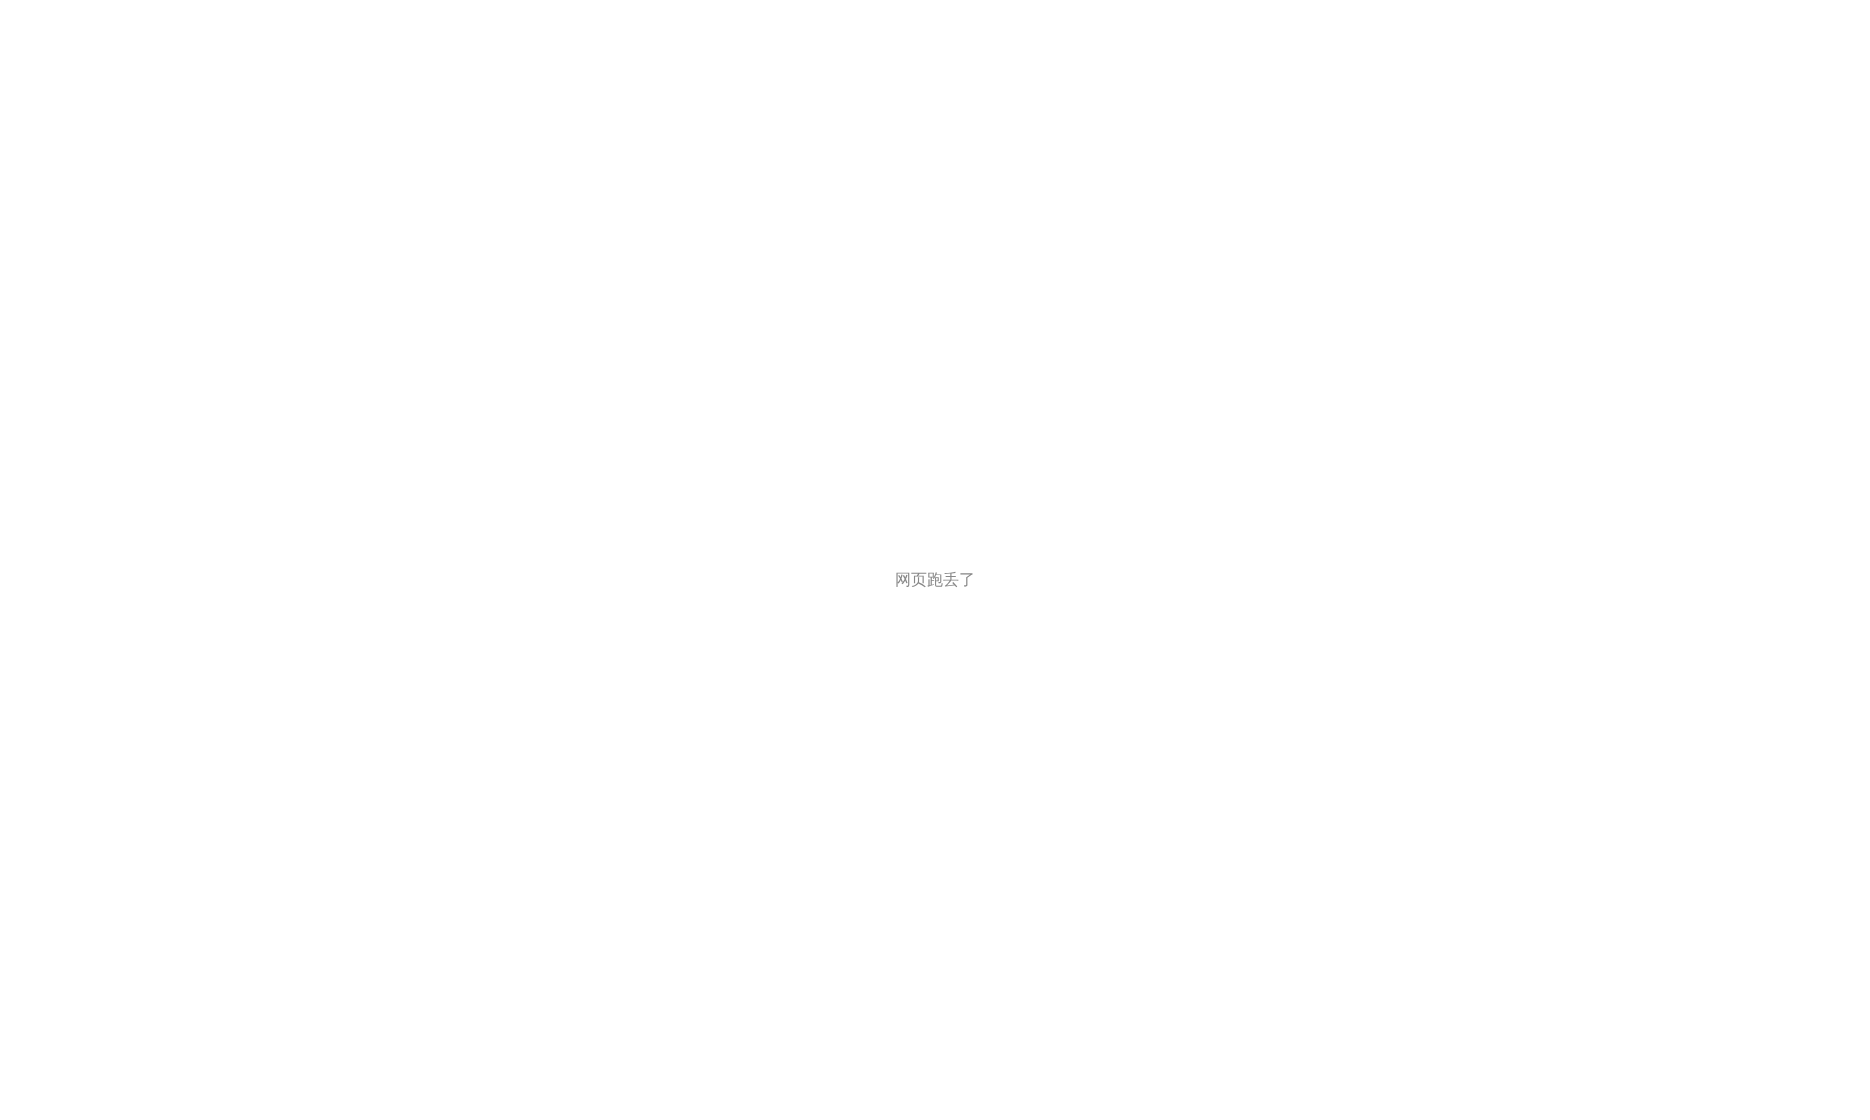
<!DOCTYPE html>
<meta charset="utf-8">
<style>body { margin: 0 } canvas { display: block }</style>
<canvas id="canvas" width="1870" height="1120"></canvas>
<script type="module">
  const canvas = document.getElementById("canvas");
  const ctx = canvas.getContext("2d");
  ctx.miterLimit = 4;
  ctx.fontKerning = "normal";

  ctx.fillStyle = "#ffffff";
  ctx.fillRect(0, 0, 1870, 1120);
  ctx.font = "500 16px WenQuanYi Zen Hei";
  ctx.fillStyle = "#888888";
  ctx.fillText("网页跑丢了", 895, 585);
</script>
